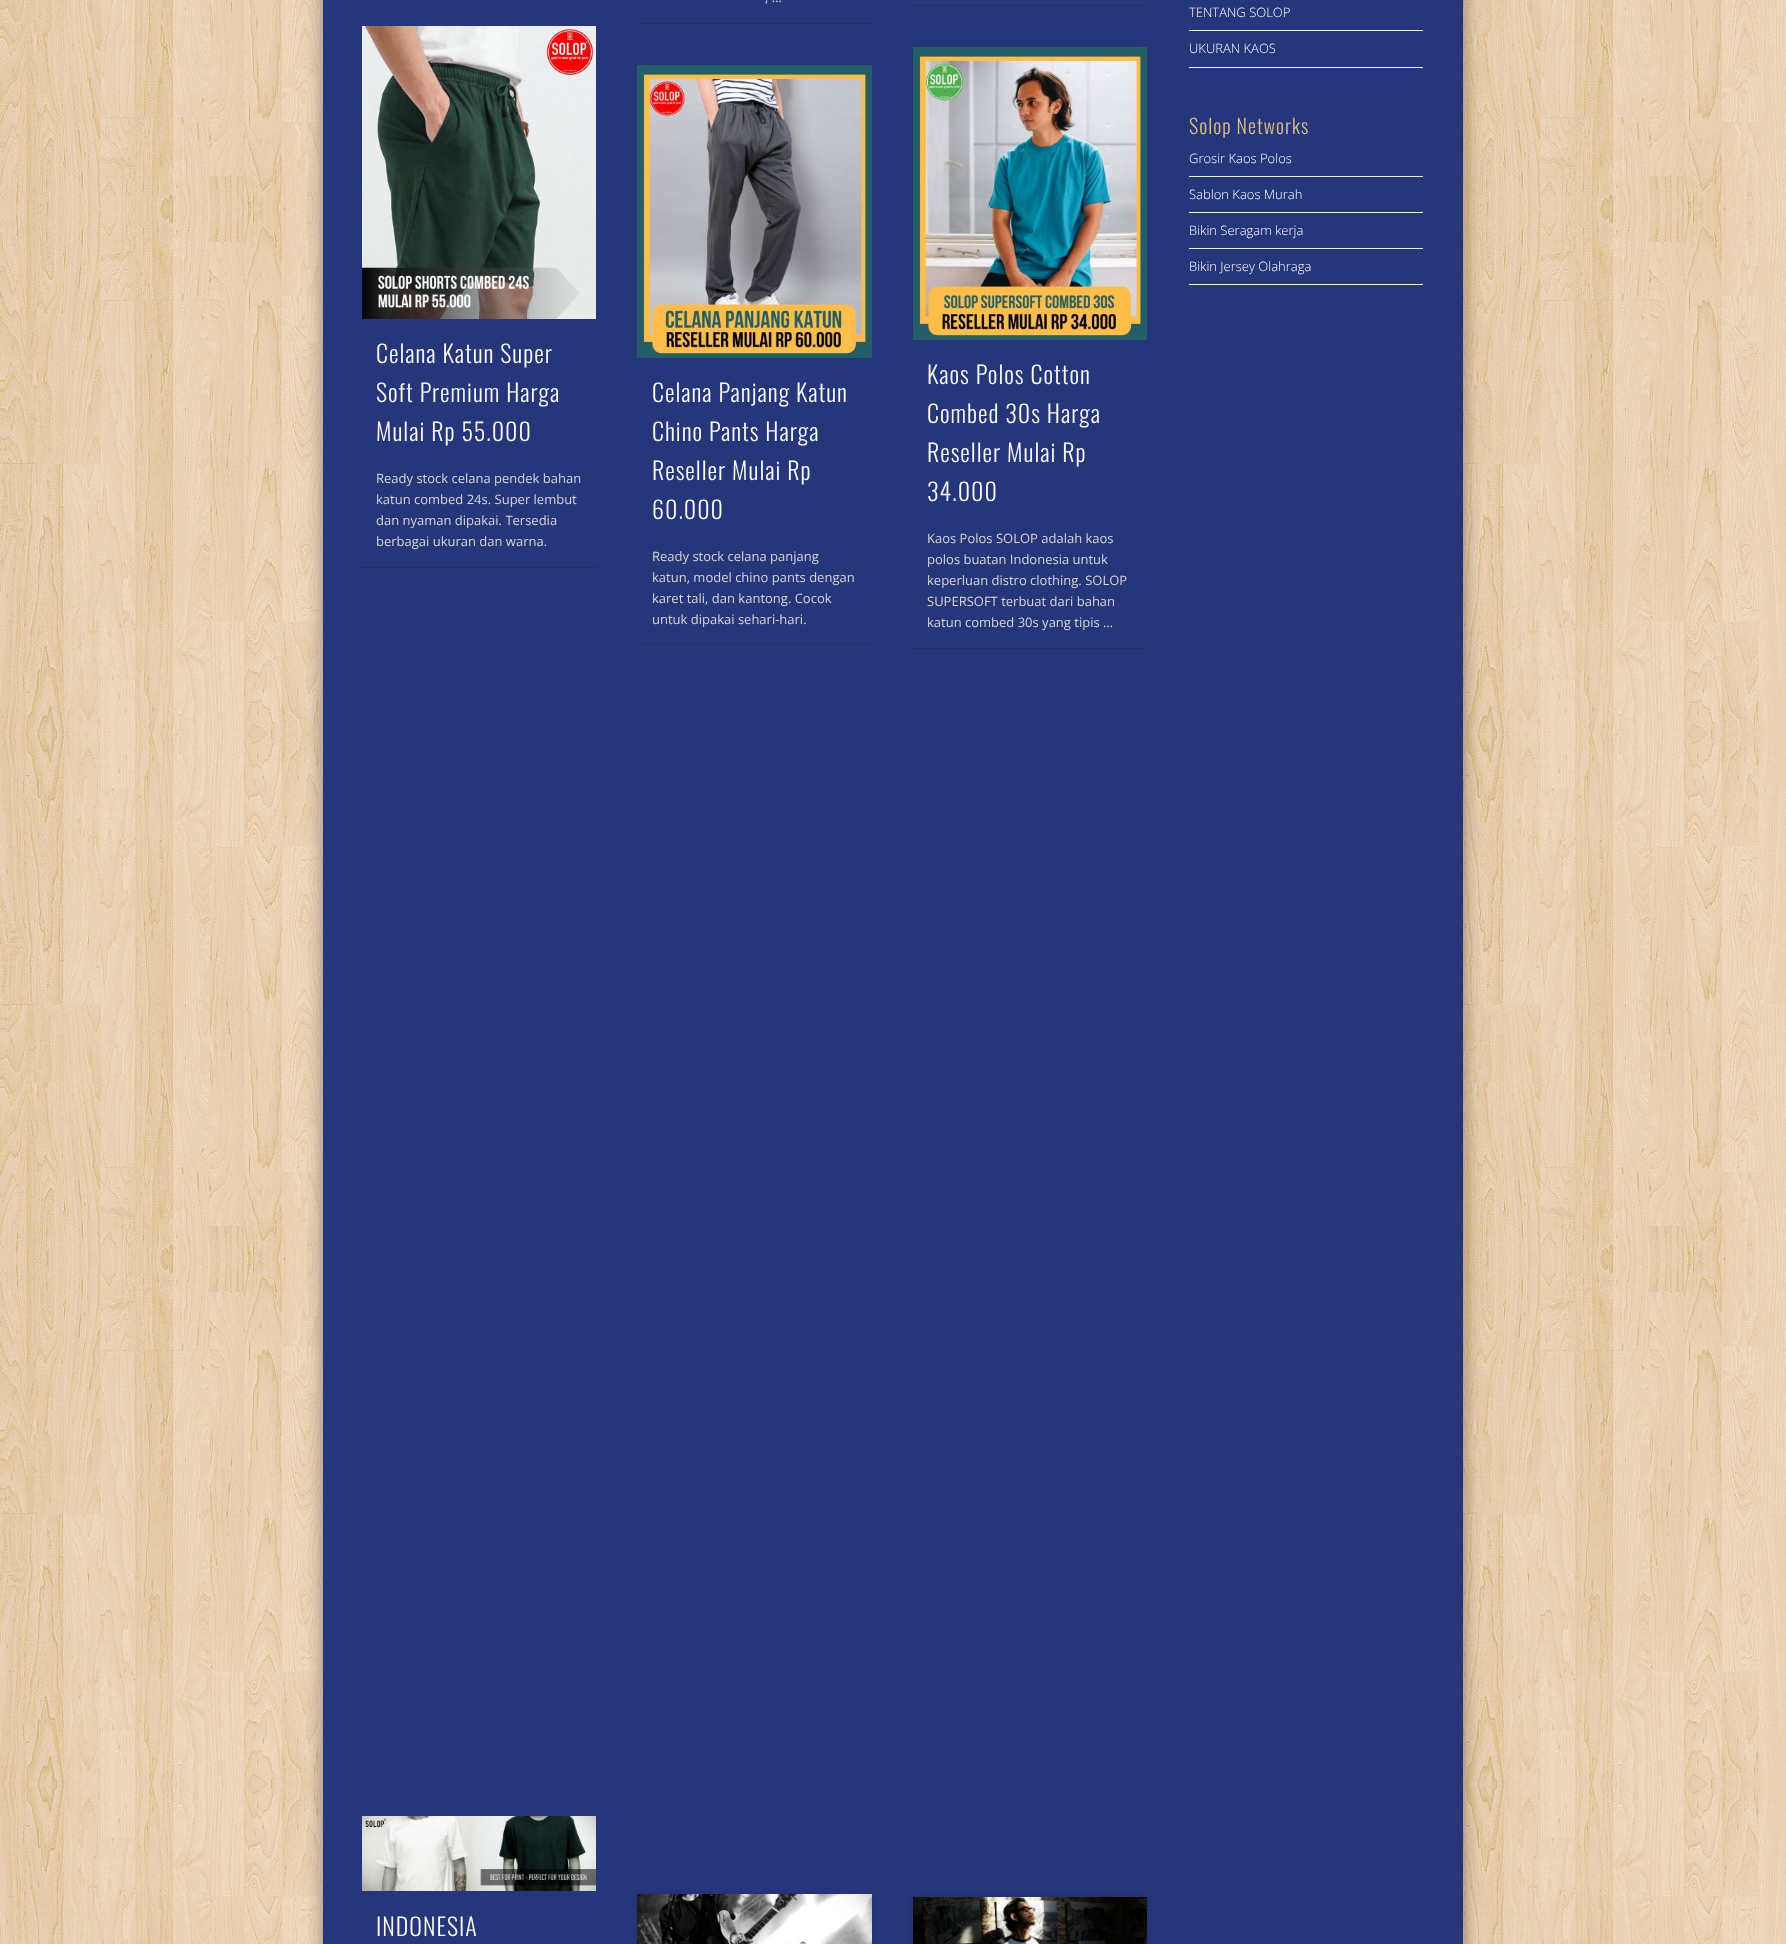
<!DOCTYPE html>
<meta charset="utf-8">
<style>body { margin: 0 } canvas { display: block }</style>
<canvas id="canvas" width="1786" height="1944"></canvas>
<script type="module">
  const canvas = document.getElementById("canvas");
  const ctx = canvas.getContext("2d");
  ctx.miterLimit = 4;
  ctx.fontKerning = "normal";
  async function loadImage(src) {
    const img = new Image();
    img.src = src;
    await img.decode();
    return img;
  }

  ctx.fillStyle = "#ffffff";
  ctx.fillRect(0, 0, 1786, 1944);
  ctx.drawImage(await loadImage("img1.png"), 0, 0, 1786, 1944);
  ctx.fillStyle = "rgba(0, 0, 0, 0.4)";
  ctx.filter = "blur(9px)";
  ctx.beginPath();
  ctx.rect(323, -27, 1140, 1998);
  ctx.fill();
  ctx.filter = "none";
  ctx.fillStyle = "#25367a";
  ctx.fillRect(323, 0, 1140, 1944);
  ctx.fillStyle = "#202f6a";
  ctx.fillRect(637, 23, 235, 1);
  ctx.font = "13px Open Sans";
  ctx.fillStyle = "#d6d6d6";
  ctx.fillText(", …", 765, 2);
  ctx.fillStyle = "#202f6a";
  ctx.fillRect(913, 5, 234, 1);
  ctx.fillRect(362, 567, 234, 1);
  ctx.drawImage(await loadImage("img2.png"), 362, 26, 234, 293);
  ctx.letterSpacing = "1px";
  ctx.font = "300 24px Oswald";
  ctx.fillStyle = "#f9f9f9";
  ctx.fillText("Celana Katun Super", 376, 363);
  ctx.fillText("Soft Premium Harga", 376, 402);
  ctx.fillText("Mulai Rp 55.000", 376, 441);
  ctx.letterSpacing = "0px";
  ctx.font = "13px Open Sans";
  ctx.fillStyle = "#d6d6d6";
  ctx.fillText("Ready stock celana pendek bahan", 376, 483);
  ctx.fillText("katun combed 24s. Super lembut", 376, 504);
  ctx.fillText("dan nyaman dipakai. Tersedia", 376, 525);
  ctx.fillText("berbagai ukuran dan warna.", 376, 546);
  ctx.fillStyle = "#202f6a";
  ctx.fillRect(637, 644, 235, 1);
  ctx.drawImage(await loadImage("img3.png"), 637, 65, 235, 293);
  ctx.letterSpacing = "1px";
  ctx.font = "300 24px Oswald";
  ctx.fillStyle = "#f9f9f9";
  ctx.fillText("Celana Panjang Katun", 652, 402);
  ctx.fillText("Chino Pants Harga", 652, 441);
  ctx.fillText("Reseller Mulai Rp", 652, 480);
  ctx.fillText("60.000", 652, 519);
  ctx.letterSpacing = "0px";
  ctx.font = "13px Open Sans";
  ctx.fillStyle = "#d6d6d6";
  ctx.fillText("Ready stock celana panjang", 652, 561);
  ctx.fillText("katun, model chino pants dengan", 652, 582);
  ctx.fillText("karet tali, dan kantong. Cocok", 652, 603);
  ctx.fillText("untuk dipakai sehari-hari.", 652, 624);
  ctx.fillStyle = "#202f6a";
  ctx.fillRect(913, 648, 234, 1);
  ctx.drawImage(await loadImage("img4.png"), 913, 47, 234, 293);
  ctx.letterSpacing = "1px";
  ctx.font = "300 24px Oswald";
  ctx.fillStyle = "#f9f9f9";
  ctx.fillText("Kaos Polos Cotton", 927, 384);
  ctx.fillText("Combed 30s Harga", 927, 423);
  ctx.fillText("Reseller Mulai Rp", 927, 462);
  ctx.fillText("34.000", 927, 501);
  ctx.letterSpacing = "0px";
  ctx.font = "13px Open Sans";
  ctx.fillStyle = "#d6d6d6";
  ctx.fillText("Kaos Polos SOLOP adalah kaos", 927, 543);
  ctx.fillText("polos buatan Indonesia untuk", 927, 564);
  ctx.fillText("keperluan distro clothing. SOLOP", 927, 585);
  ctx.fillText("SUPERSOFT terbuat dari bahan", 927, 606);
  ctx.fillText("katun combed 30s yang tipis …", 927, 627);
  ctx.drawImage(await loadImage("img5.png"), 362, 1816, 234, 75);
  ctx.letterSpacing = "1px";
  ctx.font = "300 24px Oswald";
  ctx.fillStyle = "#f9f9f9";
  ctx.fillText("INDONESIA", 376, 1936);
  ctx.fillStyle = "rgba(0, 0, 0, 0.1)";
  ctx.filter = "blur(2.5px)";
  ctx.beginPath();
  ctx.rect(637, 1894, 235, 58);
  ctx.fill();
  ctx.filter = "none";
  ctx.drawImage(await loadImage("img6.png"), 637, 1894, 235, 50);
  ctx.filter = "blur(2.5px)";
  ctx.beginPath();
  ctx.rect(913, 1897, 234, 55);
  ctx.fill();
  ctx.filter = "none";
  ctx.drawImage(await loadImage("img7.png"), 913, 1897, 234, 47);
  ctx.fillStyle = "#eeeeee";
  ctx.fillRect(1189, 30, 234, 1);
  ctx.letterSpacing = "0px";
  ctx.font = "300 13px Open Sans";
  ctx.fillStyle = "#ffffff";
  ctx.fillText("TENTANG SOLOP", 1189, 17);
  ctx.fillStyle = "#eeeeee";
  ctx.fillRect(1189, 67, 234, 1);
  ctx.fillStyle = "#ffffff";
  ctx.fillText("UKURAN KAOS", 1189, 53);
  ctx.letterSpacing = "1px";
  ctx.font = "300 20px Oswald";
  ctx.fillStyle = "#ddbd8d";
  ctx.fillText("Solop Networks", 1189, 134);
  ctx.fillStyle = "#eeeeee";
  ctx.fillRect(1189, 176, 234, 1);
  ctx.letterSpacing = "0px";
  ctx.font = "300 13px Open Sans";
  ctx.fillStyle = "#ffffff";
  ctx.fillText("Grosir Kaos Polos", 1189, 163);
  ctx.fillStyle = "#eeeeee";
  ctx.fillRect(1189, 212, 234, 1);
  ctx.fillStyle = "#ffffff";
  ctx.fillText("Sablon Kaos Murah", 1189, 199);
  ctx.fillStyle = "#eeeeee";
  ctx.fillRect(1189, 248, 234, 1);
  ctx.fillStyle = "#ffffff";
  ctx.fillText("Bikin Seragam kerja", 1189, 235);
  ctx.fillStyle = "#eeeeee";
  ctx.fillRect(1189, 284, 234, 1);
  ctx.fillStyle = "#ffffff";
  ctx.fillText("Bikin Jersey Olahraga", 1189, 271);
</script>
